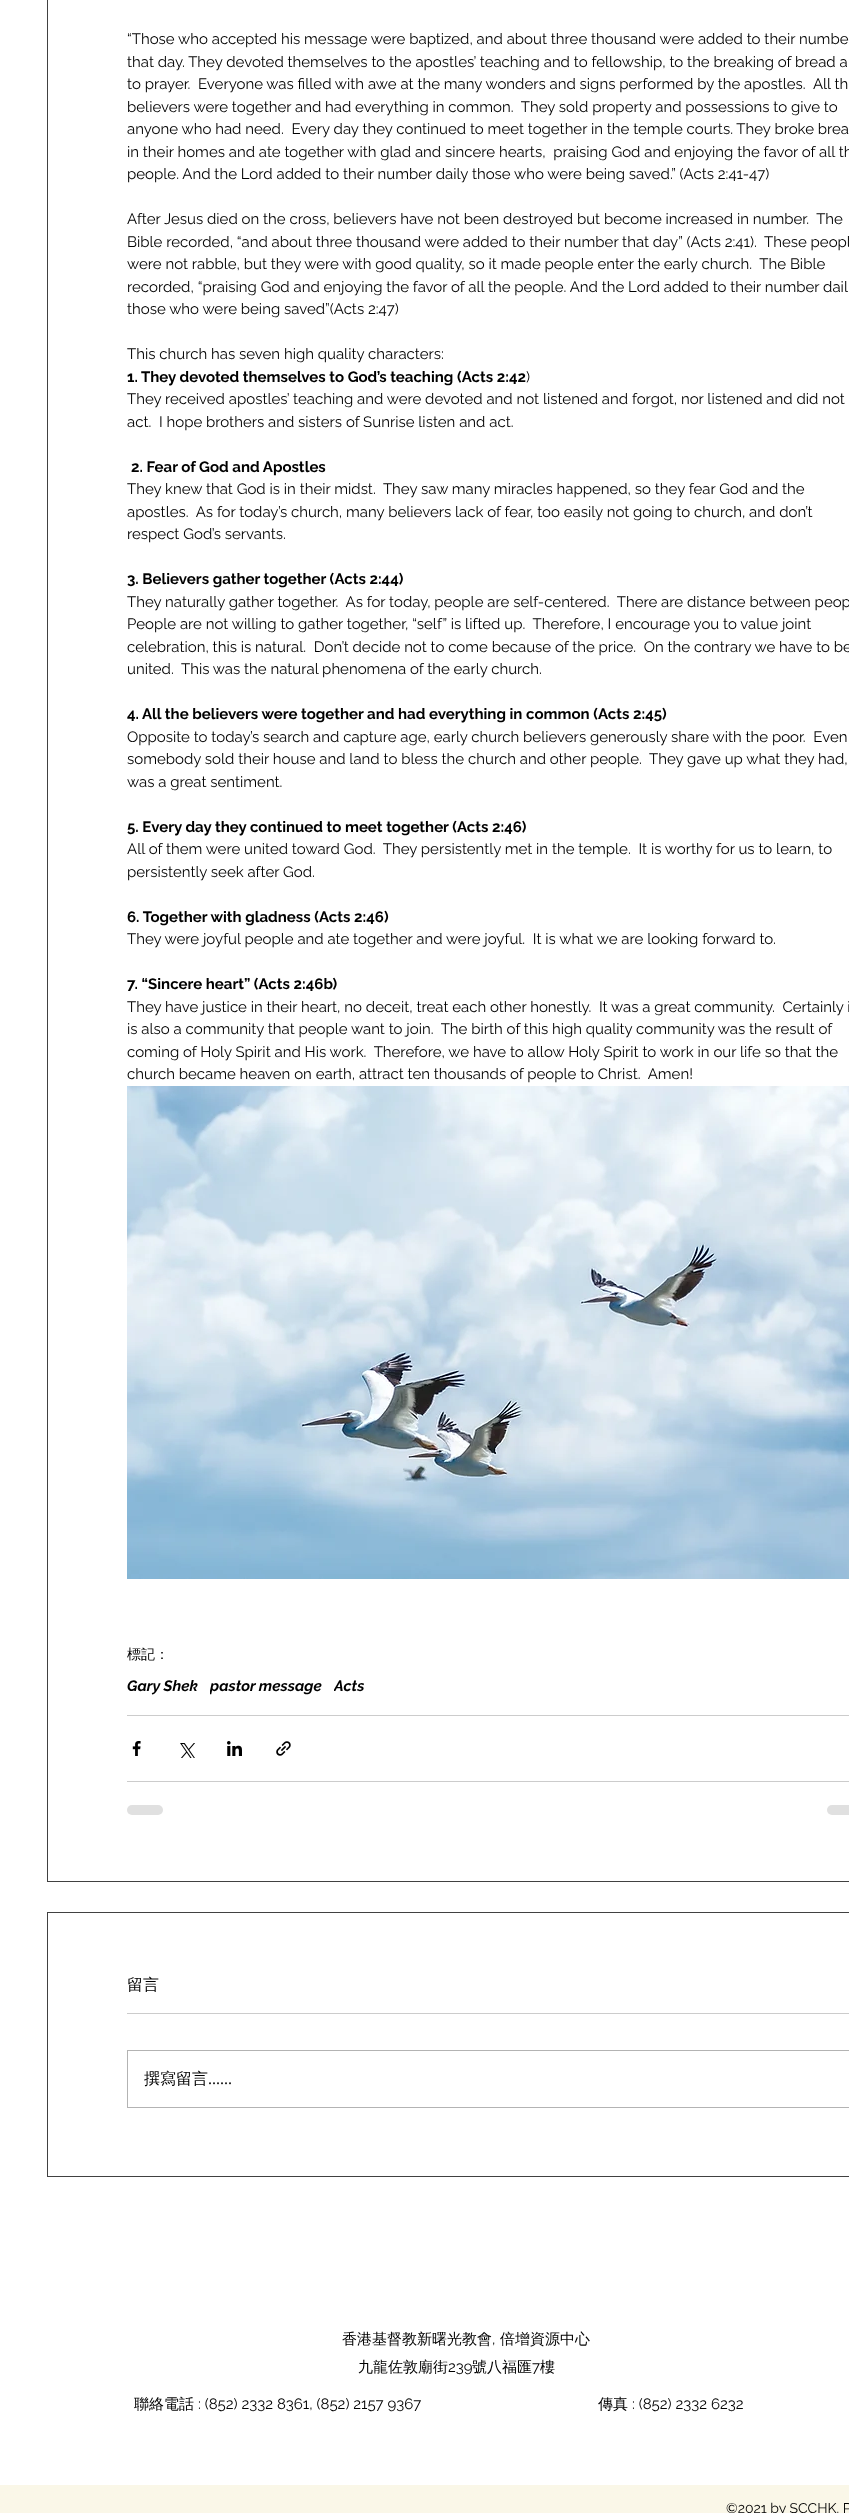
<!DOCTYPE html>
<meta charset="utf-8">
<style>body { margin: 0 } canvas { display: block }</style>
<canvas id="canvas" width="849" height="2513"></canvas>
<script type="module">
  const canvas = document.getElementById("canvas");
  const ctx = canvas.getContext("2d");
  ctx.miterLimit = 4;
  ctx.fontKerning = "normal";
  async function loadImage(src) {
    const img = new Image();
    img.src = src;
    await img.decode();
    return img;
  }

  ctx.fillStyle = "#ffffff";
  ctx.fillRect(0, 0, 849, 2513);
  ctx.strokeStyle = "#414141";
  ctx.strokeRect(47.5, -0.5, 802, 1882);
  ctx.font = "15px Raleway";
  ctx.fillStyle = "#000000";
  ctx.fillText("“Those who accepted his message were baptized, and about three thousand were added to their numbe", 127, 44);
  ctx.fillText("that day. They devoted themselves to the apostles’ teaching and to fellowship, to the breaking of bread a", 127, 67);
  ctx.fillText("to prayer.  Everyone was filled with awe at the many wonders and signs performed by the apostles.  All th", 127, 89);
  ctx.fillText("believers were together and had everything in common.  They sold property and possessions to give to", 127, 112);
  ctx.fillText("anyone who had need.  Every day they continued to meet together in the temple courts. They broke brea", 127, 134);
  ctx.fillText("in their homes and ate together with glad and sincere hearts,  praising God and enjoying the favor of all th", 127, 157);
  ctx.fillText("people. And the Lord added to their number daily those who were being saved.” (Acts 2:41-47)", 127, 179);
  ctx.fillText("After Jesus died on the cross, believers have not been destroyed but become increased in number.  The", 127, 224);
  ctx.fillText("Bible recorded, “and about three thousand were added to their number that day” (Acts 2:41).  These peopl", 127, 247);
  ctx.fillText("were not rabble, but they were with good quality, so it made people enter the early church.  The Bible", 127, 269);
  ctx.fillText("recorded, “praising God and enjoying the favor of all the people. And the Lord added to their number dail", 127, 292);
  ctx.fillText("those who were being saved”(Acts 2:47)", 127, 314);
  ctx.fillText("This church has seven high quality characters:", 127, 359);
  ctx.font = "bold 15px Raleway";
  ctx.fillText("1. They devoted themselves to God’s teaching (Acts 2:42", 127, 382);
  ctx.font = "15px Raleway";
  ctx.fillText(")", 526, 382);
  ctx.fillText("They received apostles’ teaching and were devoted and not listened and forgot, nor listened and did not", 127, 404);
  ctx.fillText("act.  I hope brothers and sisters of Sunrise listen and act.", 127, 427);
  ctx.font = "bold 15px Raleway";
  ctx.fillText("2. Fear of God and Apostles", 131, 472);
  ctx.font = "15px Raleway";
  ctx.fillText("They knew that God is in their midst.  They saw many miracles happened, so they fear God and the", 127, 494);
  ctx.fillText("apostles.  As for today’s church, many believers lack of fear, too easily not going to church, and don’t", 127, 517);
  ctx.fillText("respect God’s servants.", 127, 539);
  ctx.font = "bold 15px Raleway";
  ctx.fillText("3. Believers gather together (Acts 2:44)", 127, 584);
  ctx.font = "15px Raleway";
  ctx.fillText("They naturally gather together.  As for today, people are self-centered.  There are distance between peop", 127, 607);
  ctx.fillText("People are not willing to gather together, “self” is lifted up.  Therefore, I encourage you to value joint", 127, 629);
  ctx.fillText("celebration, this is natural.  Don’t decide not to come because of the price.  On the contrary we have to be", 127, 652);
  ctx.fillText("united.  This was the natural phenomena of the early church.", 127, 674);
  ctx.font = "bold 15px Raleway";
  ctx.fillText("4. All the believers were together and had everything in common (Acts 2:45)", 127, 719);
  ctx.font = "15px Raleway";
  ctx.fillText("Opposite to today’s search and capture age, early church believers generously share with the poor.  Even", 127, 742);
  ctx.fillText("somebody sold their house and land to bless the church and other people.  They gave up what they had,", 127, 764);
  ctx.fillText("was a great sentiment.", 127, 787);
  ctx.font = "bold 15px Raleway";
  ctx.fillText("5. Every day they continued to meet together (Acts 2:46)", 127, 832);
  ctx.font = "15px Raleway";
  ctx.fillText("All of them were united toward God.  They persistently met in the temple.  It is worthy for us to learn, to", 127, 854);
  ctx.fillText("persistently seek after God.", 127, 877);
  ctx.font = "bold 15px Raleway";
  ctx.fillText("6. Together with gladness (Acts 2:46)", 127, 922);
  ctx.font = "15px Raleway";
  ctx.fillText("They were joyful people and ate together and were joyful.  It is what we are looking forward to.", 127, 944);
  ctx.font = "bold 15px Raleway";
  ctx.fillText("7. “Sincere heart” (Acts 2:46b)", 127, 989);
  ctx.font = "15px Raleway";
  ctx.fillText("They have justice in their heart, no deceit, treat each other honestly.  It was a great community.  Certainly i", 127, 1012);
  ctx.fillText("is also a community that people want to join.  The birth of this high quality community was the result of", 127, 1034);
  ctx.fillText("coming of Holy Spirit and His work.  Therefore, we have to allow Holy Spirit to work in our life so that the", 127, 1057);
  ctx.fillText("church became heaven on earth, attract ten thousands of people to Christ.  Amen!", 127, 1079);
  ctx.drawImage(await loadImage("img1.png"), 127, 1086, 722, 493);
  ctx.font = "500 14px WenQuanYi Zen Hei";
  ctx.fillText("標記：", 127, 1659);
  ctx.font = "italic bold 15px Raleway";
  ctx.fillText("Gary Shek", 127, 1691);
  ctx.save();
  ctx.beginPath();
  ctx.rect(210, 1677, 112, 18);
  ctx.clip();
  ctx.fillText("pastor message", 210, 1691);
  ctx.restore();
  ctx.save();
  ctx.beginPath();
  ctx.rect(334, 1677, 30, 18);
  ctx.clip();
  ctx.fillText("Acts", 334, 1691);
  ctx.restore();
  ctx.fillStyle = "#cccccc";
  ctx.fillRect(127, 1715, 722, 1);
  ctx.drawImage(await loadImage("img2.png"), 132, 1741, 9, 15);
  ctx.drawImage(await loadImage("img3.png"), 180, 1743, 15, 15);
  ctx.drawImage(await loadImage("img4.png"), 227, 1741, 15, 15);
  ctx.drawImage(await loadImage("img5.png"), 276, 1741, 15, 15);
  ctx.fillRect(127, 1781, 722, 1);
  ctx.fillStyle = "#e0e0e0";
  ctx.beginPath();
  ctx.roundRect(127, 1805, 36, 10, 5);
  ctx.fill();
  ctx.beginPath();
  ctx.roundRect(827, 1805, 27, 10, 5);
  ctx.fill();
  ctx.strokeRect(47.5, 1912.5, 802, 264);
  ctx.font = "500 16px WenQuanYi Zen Hei";
  ctx.fillStyle = "#000000";
  ctx.fillText("留言", 127, 1990);
  ctx.fillStyle = "#cccccc";
  ctx.fillRect(127, 2013, 722, 1);
  ctx.strokeStyle = "#b3b3b3";
  ctx.strokeRect(127.5, 2050.5, 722, 57);
  ctx.fillStyle = "#000000";
  ctx.fillText("撰寫留言", 144, 2084);
  ctx.font = "16px Liberation Serif";
  ctx.fillText("......", 208, 2084);
  ctx.font = "500 15px WenQuanYi Zen Hei";
  ctx.fillText("香港基督教新曙光教會", 342, 2344);
  ctx.font = "15px Raleway";
  ctx.fillText(",", 492, 2344);
  ctx.font = "500 15px WenQuanYi Zen Hei";
  ctx.fillText("倍增資源中心", 500, 2344);
  ctx.fillText("九龍佐敦廟街", 358, 2372);
  ctx.font = "15px Raleway";
  ctx.fillText("239", 448, 2372);
  ctx.font = "500 15px WenQuanYi Zen Hei";
  ctx.fillText("號八福匯", 472, 2372);
  ctx.font = "15px Raleway";
  ctx.fillText("7", 532, 2372);
  ctx.font = "500 15px WenQuanYi Zen Hei";
  ctx.fillText("樓", 540, 2372);
  ctx.fillText("聯絡電話", 134, 2409);
  ctx.font = "15px Raleway";
  ctx.fillText(": (852) 2332 8361, (852) 2157 9367", 198, 2409);
  ctx.font = "500 15px WenQuanYi Zen Hei";
  ctx.fillText("傳真", 598, 2409);
  ctx.font = "15px Raleway";
  ctx.fillText(": (852) 2332 6232", 632, 2409);
  ctx.fillStyle = "#faf7e8";
  ctx.fillRect(0, 2485, 849, 28);
  ctx.font = "14px Raleway";
  ctx.fillStyle = "#000000";
  ctx.fillText("©2021 by SCCHK. P", 726, 2513);
</script>
